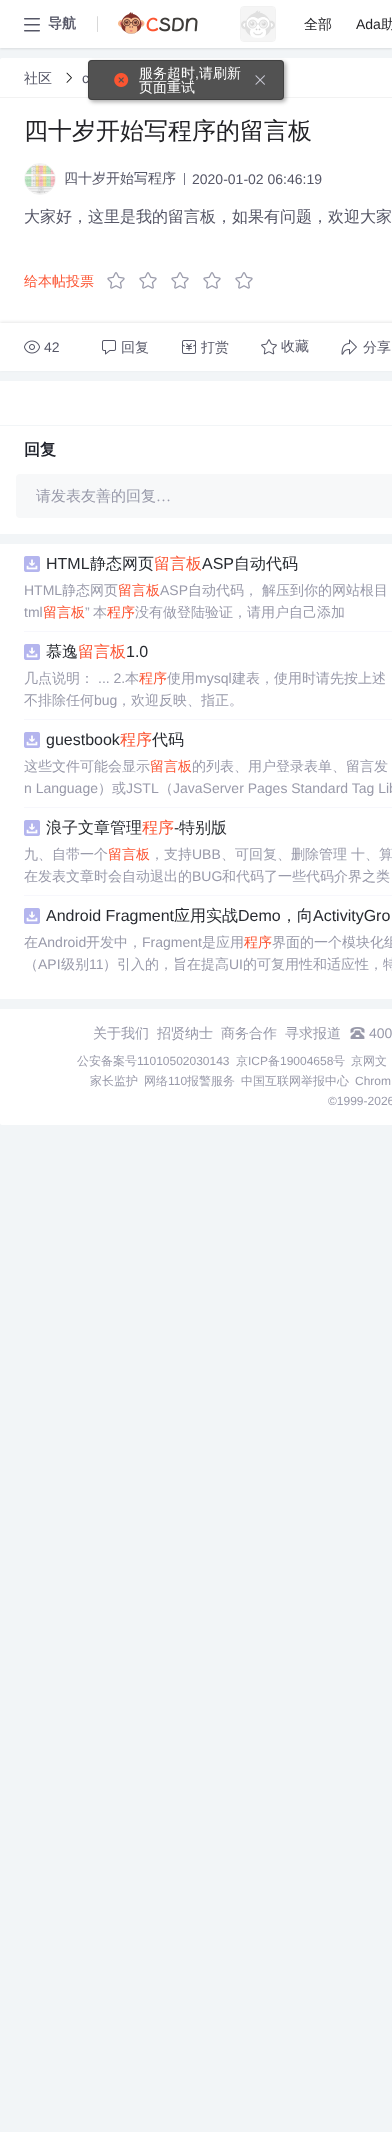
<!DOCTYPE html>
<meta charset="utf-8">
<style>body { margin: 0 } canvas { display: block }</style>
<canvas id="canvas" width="392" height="2132"></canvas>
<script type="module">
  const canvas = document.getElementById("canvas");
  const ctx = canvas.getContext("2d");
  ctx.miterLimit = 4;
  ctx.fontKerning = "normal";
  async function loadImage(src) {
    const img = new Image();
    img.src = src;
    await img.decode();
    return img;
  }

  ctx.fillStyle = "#f2f5f7";
  ctx.fillRect(0, 0, 392, 2132);
  ctx.fillStyle = "rgba(0, 0, 0, 0.1)";
  ctx.filter = "blur(1px)";
  ctx.beginPath();
  ctx.rect(0, 1, 392, 48);
  ctx.fill();
  ctx.filter = "none";
  ctx.fillStyle = "#ffffff";
  ctx.fillRect(0, 0, 392, 48);
  ctx.drawImage(await loadImage("img1.png"), 24, 18, 16, 14);
  ctx.font = "bold 14px WenQuanYi Zen Hei";
  ctx.fillStyle = "#555666";
  ctx.fillText("导航", 48, 28);
  ctx.fillStyle = "#d8d8d8";
  ctx.beginPath();
  ctx.roundRect(97, 16, 1, 16, 0.5);
  ctx.fill();
  ctx.drawImage(await loadImage("img2.png"), 118, 12, 80, 22);
  ctx.beginPath();
  ctx.roundRect(240.5, 6.5, 35, 35, 3.5);
  ctx.strokeStyle = "#f2f2f2";
  ctx.stroke();
  ctx.drawImage(await loadImage("img3.png"), 241, 7, 34, 34);
  ctx.font = "500 14px WenQuanYi Zen Hei";
  ctx.fillStyle = "#222226";
  ctx.fillText("全部", 304, 29);
  ctx.font = "14px Liberation Sans";
  ctx.fillText("Ada", 356, 29);
  ctx.font = "500 14px WenQuanYi Zen Hei";
  ctx.fillText("助", 381, 29);
  ctx.fillStyle = "#ffffff";
  ctx.beginPath();
  ctx.moveTo(2, 58);
  ctx.lineTo(392, 58);
  ctx.bezierCurveTo(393, 58, 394, 59, 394, 60);
  ctx.lineTo(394, 98);
  ctx.lineTo(0, 98);
  ctx.lineTo(0, 60);
  ctx.bezierCurveTo(0, 59, 1, 58, 2, 58);
  ctx.closePath();
  ctx.fill();
  ctx.fillStyle = "#f2f2f2";
  ctx.fillRect(0, 97, 392, 1);
  ctx.fillStyle = "#555666";
  ctx.fillText("社区", 24, 83);
  ctx.drawImage(await loadImage("img4.png"), 66, 72, 6, 11);
  ctx.font = "14px Liberation Sans";
  ctx.fillText("c", 82, 83);
  ctx.drawImage(await loadImage("img4.png"), 191, 72, 6, 11);
  ctx.fillStyle = "#ffffff";
  ctx.fillRect(0, 98, 392, 225);
  ctx.font = "500 24px WenQuanYi Zen Hei";
  ctx.fillStyle = "#222226";
  ctx.fillText("四十岁开始写程序的留言板", 24, 139);
  ctx.beginPath();
  ctx.arc(40, 179, 15.5, 0, Math.PI * 2);
  ctx.stroke();
  ctx.drawImage(await loadImage("img5.png"), 25, 164, 30, 30);
  ctx.font = "500 14px WenQuanYi Zen Hei";
  ctx.fillStyle = "#555666";
  ctx.fillText("四十岁开始写程序", 64, 183);
  ctx.fillStyle = "#777888";
  ctx.fillRect(184, 173, 1, 12);
  ctx.font = "14px Liberation Sans";
  ctx.fillStyle = "#555666";
  ctx.fillText("2020-01-02 06:46:19", 192, 184);
  ctx.font = "500 16px WenQuanYi Zen Hei";
  ctx.fillText("大家好，这里是我的留言板，如果有问题，欢迎大家", 24, 222);
  ctx.font = "500 14px WenQuanYi Zen Hei";
  ctx.fillStyle = "#fc5533";
  ctx.fillText("给本帖投票", 24, 286);
  ctx.drawImage(await loadImage("img6.png"), 107, 272, 18, 17);
  ctx.drawImage(await loadImage("img6.png"), 139, 272, 18, 17);
  ctx.drawImage(await loadImage("img6.png"), 171, 272, 18, 17);
  ctx.drawImage(await loadImage("img6.png"), 203, 272, 18, 17);
  ctx.drawImage(await loadImage("img6.png"), 235, 272, 18, 17);
  ctx.fillStyle = "rgba(18, 18, 18, 0.1)";
  ctx.filter = "blur(1.5px)";
  ctx.beginPath();
  ctx.rect(0, 322, 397, 48);
  ctx.fill();
  ctx.filter = "none";
  ctx.fillStyle = "#ffffff";
  ctx.fillRect(0, 323, 392, 48);
  ctx.drawImage(await loadImage("img7.png"), 24, 340, 16, 14);
  ctx.font = "14px Liberation Sans";
  ctx.fillStyle = "#555666";
  ctx.fillText("42", 44, 352);
  ctx.drawImage(await loadImage("img8.png"), 102, 340, 14, 15);
  ctx.font = "500 14px WenQuanYi Zen Hei";
  ctx.fillText("回复", 121, 352);
  ctx.drawImage(await loadImage("img9.png"), 182, 340, 14, 14);
  ctx.fillText("打赏", 201, 352);
  ctx.drawImage(await loadImage("img10.png"), 261, 339, 16, 16);
  ctx.fillText("收藏", 281, 351);
  ctx.drawImage(await loadImage("img11.png"), 341, 339, 16, 16);
  ctx.fillText("分享", 363, 352);
  ctx.fillStyle = "#ffffff";
  ctx.fillRect(0, 381, 392, 44);
  ctx.fillRect(0, 426, 392, 108);
  ctx.font = "bold 16px WenQuanYi Zen Hei";
  ctx.fillStyle = "#20232c";
  ctx.fillText("回复", 24, 455);
  ctx.fillStyle = "#f7f8f9";
  ctx.beginPath();
  ctx.roundRect(16, 474, 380, 44, 4);
  ctx.fill();
  ctx.font = "500 15px WenQuanYi Zen Hei";
  ctx.fillStyle = "#999aaa";
  ctx.fillText("请发表友善的回复", 36, 501);
  ctx.font = "15px Liberation Serif";
  ctx.fillText("…", 156, 501);
  ctx.fillStyle = "#ffffff";
  ctx.fillRect(0, 544, 392, 455);
  ctx.fillStyle = "#f7f7fc";
  ctx.fillRect(24, 631, 368, 1);
  ctx.drawImage(await loadImage("img12.png"), 24, 556, 16, 16);
  ctx.font = "16px Liberation Sans";
  ctx.fillStyle = "#282b31";
  ctx.fillText("HTML", 46, 569);
  ctx.font = "500 16px WenQuanYi Zen Hei";
  ctx.fillText("静态网页", 90, 569);
  ctx.fillStyle = "#fc5533";
  ctx.fillText("留言板", 154, 569);
  ctx.font = "16px Liberation Sans";
  ctx.fillStyle = "#282b31";
  ctx.fillText("ASP", 202, 569);
  ctx.font = "500 16px WenQuanYi Zen Hei";
  ctx.fillText("自动代码", 234, 569);
  ctx.font = "14px Liberation Sans";
  ctx.fillStyle = "#999aaa";
  ctx.fillText("HTML", 24, 595);
  ctx.font = "500 14px WenQuanYi Zen Hei";
  ctx.fillText("静态网页", 62, 595);
  ctx.fillStyle = "#fc5533";
  ctx.fillText("留言板", 118, 595);
  ctx.font = "14px Liberation Sans";
  ctx.fillStyle = "#999aaa";
  ctx.fillText("ASP", 160, 595);
  ctx.font = "500 14px WenQuanYi Zen Hei";
  ctx.fillText("自动代码，", 188, 595);
  ctx.fillText("解压到你的网站根目", 262, 595);
  ctx.font = "14px Liberation Sans";
  ctx.fillText("tml", 24, 617);
  ctx.font = "500 14px WenQuanYi Zen Hei";
  ctx.fillStyle = "#fc5533";
  ctx.fillText("留言板", 43, 617);
  ctx.font = "14px Liberation Sans";
  ctx.fillStyle = "#999aaa";
  ctx.fillText("”", 85, 617);
  ctx.font = "500 14px WenQuanYi Zen Hei";
  ctx.fillText("本", 93, 617);
  ctx.fillStyle = "#fc5533";
  ctx.fillText("程序", 107, 617);
  ctx.fillStyle = "#999aaa";
  ctx.fillText("没有做登陆验证，请用户自己添加", 135, 617);
  ctx.fillStyle = "#f7f7fc";
  ctx.fillRect(24, 719, 368, 1);
  ctx.drawImage(await loadImage("img12.png"), 24, 644, 16, 16);
  ctx.font = "500 16px WenQuanYi Zen Hei";
  ctx.fillStyle = "#282b31";
  ctx.fillText("慕逸", 46, 657);
  ctx.fillStyle = "#fc5533";
  ctx.fillText("留言板", 78, 657);
  ctx.font = "16px Liberation Sans";
  ctx.fillStyle = "#282b31";
  ctx.fillText("1.0", 126, 657);
  ctx.font = "500 14px WenQuanYi Zen Hei";
  ctx.fillStyle = "#999aaa";
  ctx.fillText("几点说明：", 24, 683);
  ctx.font = "14px Liberation Sans";
  ctx.fillText("... 2.", 98, 683);
  ctx.font = "500 14px WenQuanYi Zen Hei";
  ctx.fillText("本", 125, 683);
  ctx.fillStyle = "#fc5533";
  ctx.fillText("程序", 139, 683);
  ctx.fillStyle = "#999aaa";
  ctx.fillText("使用", 167, 683);
  ctx.font = "14px Liberation Sans";
  ctx.fillText("mysql", 195, 683);
  ctx.font = "500 14px WenQuanYi Zen Hei";
  ctx.fillText("建表，使用时请先按上述", 232, 683);
  ctx.fillText("不排除任何", 24, 705);
  ctx.font = "14px Liberation Sans";
  ctx.fillText("bug", 94, 705);
  ctx.font = "500 14px WenQuanYi Zen Hei";
  ctx.fillText("，欢迎反映、指正。", 117, 705);
  ctx.fillStyle = "#f7f7fc";
  ctx.fillRect(24, 807, 368, 1);
  ctx.drawImage(await loadImage("img12.png"), 24, 732, 16, 16);
  ctx.font = "16px Liberation Sans";
  ctx.fillStyle = "#282b31";
  ctx.fillText("guestbook", 46, 745);
  ctx.font = "500 16px WenQuanYi Zen Hei";
  ctx.fillStyle = "#fc5533";
  ctx.fillText("程序", 120, 745);
  ctx.fillStyle = "#282b31";
  ctx.fillText("代码", 152, 745);
  ctx.font = "500 14px WenQuanYi Zen Hei";
  ctx.fillStyle = "#999aaa";
  ctx.fillText("这些文件可能会显示", 24, 771);
  ctx.fillStyle = "#fc5533";
  ctx.fillText("留言板", 150, 771);
  ctx.fillStyle = "#999aaa";
  ctx.fillText("的列表、用户登录表单、留言发", 192, 771);
  ctx.font = "14px Liberation Sans";
  ctx.fillText("n Language", 24, 793);
  ctx.font = "500 14px WenQuanYi Zen Hei";
  ctx.fillText("）或", 98, 793);
  ctx.font = "14px Liberation Sans";
  ctx.fillText("JSTL", 126, 793);
  ctx.font = "500 14px WenQuanYi Zen Hei";
  ctx.fillText("（", 159, 793);
  ctx.font = "14px Liberation Sans";
  ctx.fillText("JavaServer Pages Standard Tag Lib", 173, 793);
  ctx.fillStyle = "#f7f7fc";
  ctx.fillRect(24, 895, 368, 1);
  ctx.drawImage(await loadImage("img12.png"), 24, 820, 16, 16);
  ctx.font = "500 16px WenQuanYi Zen Hei";
  ctx.fillStyle = "#282b31";
  ctx.fillText("浪子文章管理", 46, 833);
  ctx.fillStyle = "#fc5533";
  ctx.fillText("程序", 142, 833);
  ctx.font = "16px Liberation Sans";
  ctx.fillStyle = "#282b31";
  ctx.fillText("-", 174, 833);
  ctx.font = "500 16px WenQuanYi Zen Hei";
  ctx.fillText("特别版", 179, 833);
  ctx.font = "500 14px WenQuanYi Zen Hei";
  ctx.fillStyle = "#999aaa";
  ctx.fillText("九、自带一个", 24, 859);
  ctx.fillStyle = "#fc5533";
  ctx.fillText("留言板", 108, 859);
  ctx.fillStyle = "#999aaa";
  ctx.fillText("，支持", 150, 859);
  ctx.font = "14px Liberation Sans";
  ctx.fillText("UBB", 192, 859);
  ctx.font = "500 14px WenQuanYi Zen Hei";
  ctx.fillText("、可回复、删除管理", 221, 859);
  ctx.fillText("十、算", 351, 859);
  ctx.fillText("在发表文章时会自动退出的", 24, 881);
  ctx.font = "14px Liberation Sans";
  ctx.fillText("BUG", 192, 881);
  ctx.font = "500 14px WenQuanYi Zen Hei";
  ctx.fillText("和代码了一些代码介界之类", 222, 881);
  ctx.drawImage(await loadImage("img12.png"), 24, 908, 16, 16);
  ctx.font = "16px Liberation Sans";
  ctx.fillStyle = "#282b31";
  ctx.fillText("Android Fragment", 46, 921);
  ctx.font = "500 16px WenQuanYi Zen Hei";
  ctx.fillText("应用实战", 174, 921);
  ctx.font = "16px Liberation Sans";
  ctx.fillText("Demo", 238, 921);
  ctx.font = "500 16px WenQuanYi Zen Hei";
  ctx.fillText("，向", 281, 921);
  ctx.font = "16px Liberation Sans";
  ctx.fillText("ActivityGro", 313, 921);
  ctx.font = "500 14px WenQuanYi Zen Hei";
  ctx.fillStyle = "#999aaa";
  ctx.fillText("在", 24, 947);
  ctx.font = "14px Liberation Sans";
  ctx.fillText("Android", 38, 947);
  ctx.font = "500 14px WenQuanYi Zen Hei";
  ctx.fillText("开发中，", 86, 947);
  ctx.font = "14px Liberation Sans";
  ctx.fillText("Fragment", 142, 947);
  ctx.font = "500 14px WenQuanYi Zen Hei";
  ctx.fillText("是应用", 202, 947);
  ctx.fillStyle = "#fc5533";
  ctx.fillText("程序", 244, 947);
  ctx.fillStyle = "#999aaa";
  ctx.fillText("界面的一个模块化组", 272, 947);
  ctx.fillText("（", 24, 969);
  ctx.font = "14px Liberation Sans";
  ctx.fillText("API", 38, 969);
  ctx.font = "500 14px WenQuanYi Zen Hei";
  ctx.fillText("级别", 61, 969);
  ctx.font = "14px Liberation Sans";
  ctx.fillText("11", 89, 969);
  ctx.font = "500 14px WenQuanYi Zen Hei";
  ctx.fillText("）引入的，旨在提高", 103, 969);
  ctx.font = "14px Liberation Sans";
  ctx.fillText("UI", 229, 969);
  ctx.font = "500 14px WenQuanYi Zen Hei";
  ctx.fillText("的可复用性和适应性，特", 243, 969);
  ctx.fillStyle = "#ffffff";
  ctx.beginPath();
  ctx.moveTo(0, 1009);
  ctx.lineTo(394, 1009);
  ctx.lineTo(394, 1123);
  ctx.bezierCurveTo(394, 1124, 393, 1125, 392, 1125);
  ctx.lineTo(2, 1125);
  ctx.bezierCurveTo(1, 1125, 0, 1124, 0, 1123);
  ctx.closePath();
  ctx.fill();
  ctx.fillStyle = "#999aaa";
  ctx.fillText("关于我们", 93, 1038);
  ctx.fillText("招贤纳士", 157, 1038);
  ctx.fillText("商务合作", 221, 1038);
  ctx.fillText("寻求报道", 285, 1038);
  ctx.drawImage(await loadImage("img13.png"), 350, 1027, 15, 12);
  ctx.font = "14px Liberation Sans";
  ctx.fillText("400", 369, 1038);
  ctx.font = "500 12px WenQuanYi Zen Hei";
  ctx.fillText("公安备案号", 77, 1065);
  ctx.font = "12px Liberation Sans";
  ctx.fillText("11010502030143", 137, 1065);
  ctx.font = "500 12px WenQuanYi Zen Hei";
  ctx.fillText("京", 236, 1065);
  ctx.font = "12px Liberation Sans";
  ctx.fillText("ICP", 248, 1065);
  ctx.font = "500 12px WenQuanYi Zen Hei";
  ctx.fillText("备", 268, 1065);
  ctx.font = "12px Liberation Sans";
  ctx.fillText("19004658", 280, 1065);
  ctx.font = "500 12px WenQuanYi Zen Hei";
  ctx.fillText("号", 333, 1065);
  ctx.fillText("京网文", 351, 1065);
  ctx.fillText("家长监护", 90, 1085);
  ctx.fillText("网络", 144, 1085);
  ctx.font = "12px Liberation Sans";
  ctx.fillText("110", 168, 1085);
  ctx.font = "500 12px WenQuanYi Zen Hei";
  ctx.fillText("报警服务", 187, 1085);
  ctx.fillText("中国互联网举报中心", 241, 1085);
  ctx.font = "12px Liberation Sans";
  ctx.fillText("Chrom", 355, 1085);
  ctx.fillText("©1999-2026", 328, 1105);
  ctx.save();
  ctx.beginPath();
  ctx.moveTo(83, 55);
  ctx.lineTo(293, 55);
  ctx.lineTo(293, 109);
  ctx.lineTo(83, 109);
  ctx.closePath();
  ctx.moveTo(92, 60);
  ctx.lineTo(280, 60);
  ctx.bezierCurveTo(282, 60, 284, 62, 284, 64);
  ctx.lineTo(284, 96);
  ctx.bezierCurveTo(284, 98, 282, 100, 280, 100);
  ctx.lineTo(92, 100);
  ctx.bezierCurveTo(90, 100, 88, 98, 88, 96);
  ctx.lineTo(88, 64);
  ctx.bezierCurveTo(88, 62, 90, 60, 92, 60);
  ctx.closePath();
  ctx.clip("evenodd");
  ctx.fillStyle = "rgba(0, 0, 0, 0.33)";
  ctx.filter = "blur(2px)";
  ctx.beginPath();
  ctx.roundRect(90, 62, 196, 40, 4);
  ctx.fill();
  ctx.filter = "none";
  ctx.restore();
  ctx.fillStyle = "rgba(63, 63, 63, 0.9)";
  ctx.beginPath();
  ctx.roundRect(88, 60, 196, 40, 4);
  ctx.fill();
  ctx.beginPath();
  ctx.roundRect(88.5, 60.5, 195, 39, 3.5);
  ctx.strokeStyle = "rgba(63, 63, 63, 0.9)";
  ctx.stroke();
  ctx.drawImage(await loadImage("img14.png"), 114, 73, 15, 14);
  ctx.font = "500 14px WenQuanYi Zen Hei";
  ctx.fillStyle = "#ffffff";
  ctx.fillText("服务超时", 139, 78);
  ctx.font = "14px Liberation Sans";
  ctx.fillText(",", 195, 78);
  ctx.font = "500 14px WenQuanYi Zen Hei";
  ctx.fillText("请刷新", 199, 78);
  ctx.fillText("页面重试", 139, 92);
  ctx.drawImage(await loadImage("img15.png"), 255, 75, 10, 10);
</script>
